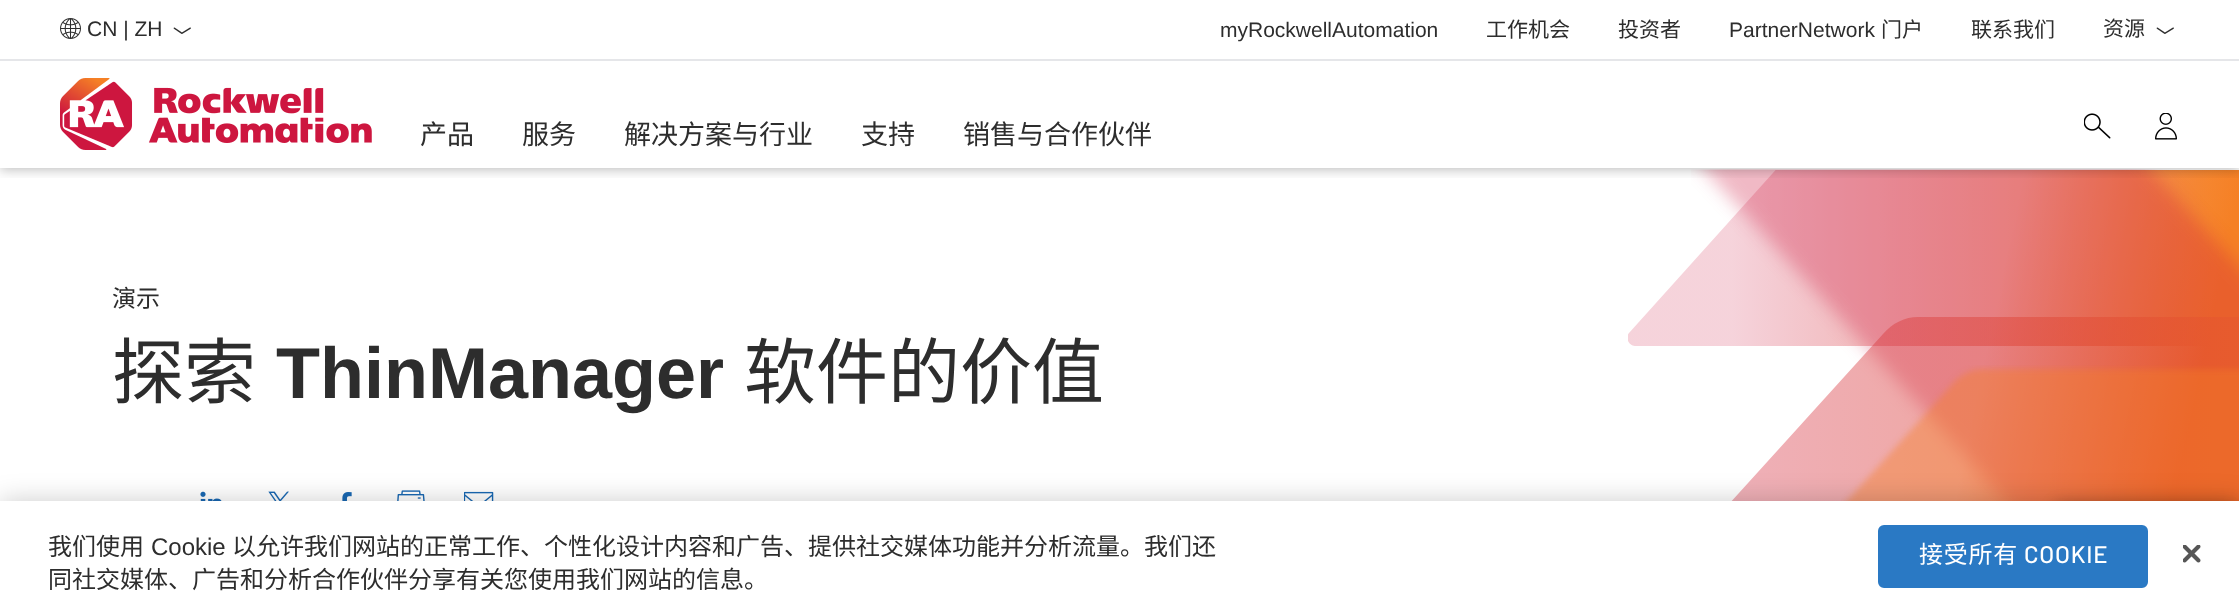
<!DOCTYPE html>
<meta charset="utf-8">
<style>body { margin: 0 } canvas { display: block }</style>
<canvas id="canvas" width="2239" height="611"></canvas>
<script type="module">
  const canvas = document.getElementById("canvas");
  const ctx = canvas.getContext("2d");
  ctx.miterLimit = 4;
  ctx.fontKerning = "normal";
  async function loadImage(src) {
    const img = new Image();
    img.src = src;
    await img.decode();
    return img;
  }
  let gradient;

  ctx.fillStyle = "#ffffff";
  ctx.fillRect(0, 0, 2239, 611);
  gradient = ctx.createLinearGradient(1643, 346, 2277, 480);
  gradient.addColorStop(0.52, "#ffffff");
  gradient.addColorStop(0.85, "#f58025");
  ctx.fillStyle = gradient;
  ctx.fillRect(1957, 170, 282, 331);
  ctx.save();
  ctx.beginPath();
  ctx.rect(1628, 170, 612, 177);
  ctx.clip();
  gradient = ctx.createLinearGradient(1732, 260, 2211, 256);
  gradient.addColorStop(0, "rgba(205, 22, 63, 0.19)");
  gradient.addColorStop(1, "rgba(245, 128, 37, 0.7)");
  ctx.fillStyle = gradient;
  ctx.beginPath();
  ctx.moveTo(1841, 346);
  ctx.lineTo(1636, 346);
  ctx.bezierCurveTo(1633, 346, 1630, 345, 1628, 341);
  ctx.bezierCurveTo(1627, 339, 1627, 335, 1629, 333);
  ctx.lineTo(1781, 164);
  ctx.bezierCurveTo(1786, 159, 1793, 156, 1800, 156);
  ctx.lineTo(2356, 156);
  ctx.bezierCurveTo(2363, 156, 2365, 159, 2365, 166);
  ctx.lineTo(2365, 336);
  ctx.bezierCurveTo(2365, 338, 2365, 340, 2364, 342);
  ctx.bezierCurveTo(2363, 344, 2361, 346, 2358, 346);
  ctx.closePath();
  ctx.fill();
  ctx.restore();
  ctx.drawImage(await loadImage("img11.png"), 1691, 169, 548, 332);
  ctx.save();
  ctx.beginPath();
  ctx.rect(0, 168, 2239, 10);
  ctx.clip();
  ctx.fillStyle = "rgba(0, 0, 0, 0.25)";
  ctx.filter = "blur(6px)";
  ctx.beginPath();
  ctx.rect(0, 62, 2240, 108);
  ctx.fill();
  ctx.filter = "none";
  ctx.restore();
  ctx.fillStyle = "#ffffff";
  ctx.fillRect(0, 52, 2239, 7);
  ctx.fillStyle = "#e5e6e9";
  ctx.fillRect(0, 59, 2239, 2);
  ctx.drawImage(await loadImage("img1.png"), 60, 18, 21, 21);
  ctx.font = "21px Liberation Sans";
  ctx.fillStyle = "#2d2d2d";
  ctx.fillText("CN | ZH", 87, 36);
  ctx.drawImage(await loadImage("img2.png"), 173, 27, 18, 7);
  ctx.fillText("myRockwellAutomation", 1220, 37);
  ctx.font = "21px Noto Sans CJK SC";
  ctx.fillText("工作机会", 1486, 37);
  ctx.fillText("投资者", 1618, 37);
  ctx.font = "21px Liberation Sans";
  ctx.fillText("PartnerNetwork", 1729, 37);
  ctx.font = "21px Noto Sans CJK SC";
  ctx.fillText("门户", 1881, 37);
  ctx.fillText("联系我们", 1971, 37);
  ctx.fillText("资源", 2103, 36);
  ctx.drawImage(await loadImage("img2.png"), 2156, 27, 18, 7);
  ctx.drawImage(await loadImage("img3.png"), 60, 78, 312, 72);
  ctx.font = "27px Noto Sans CJK SC";
  ctx.fillText("产品", 420, 144);
  ctx.fillText("服务", 522, 144);
  ctx.fillText("解决方案与行业", 624, 144);
  ctx.fillText("支持", 861, 144);
  ctx.fillText("销售与合作伙伴", 963, 144);
  ctx.drawImage(await loadImage("img4.png"), 2084, 113, 27, 26);
  ctx.drawImage(await loadImage("img5.png"), 2155, 113, 22, 27);
  ctx.font = "24px Noto Sans CJK SC";
  ctx.fillText("演示", 112, 307);
  ctx.font = "72px Noto Sans CJK SC";
  ctx.fillText("探索", 112, 398);
  ctx.font = "bold 72px Liberation Sans";
  ctx.fillText("ThinManager", 276, 398);
  ctx.font = "72px Noto Sans CJK SC";
  ctx.fillText("软件的价值", 744, 398);
  ctx.drawImage(await loadImage("img6.png"), 200, 491, 22, 10);
  ctx.drawImage(await loadImage("img7.png"), 268, 491, 21, 10);
  ctx.drawImage(await loadImage("img8.png"), 342, 492, 10, 9);
  ctx.drawImage(await loadImage("img9.png"), 397, 490, 28, 11);
  ctx.drawImage(await loadImage("img10.png"), 464, 491, 30, 10);
  gradient = ctx.createLinearGradient(1567, 512, 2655, 512);
  gradient.addColorStop(0, "rgba(205, 22, 63, 0.3)");
  gradient.addColorStop(1, "rgba(245, 128, 37, 0.7)");
  ctx.fillStyle = gradient;
  ctx.beginPath();
  ctx.moveTo(2006, 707);
  ctx.lineTo(1586, 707);
  ctx.bezierCurveTo(1578, 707, 1572, 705, 1569, 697);
  ctx.bezierCurveTo(1566, 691, 1567, 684, 1571, 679);
  ctx.lineTo(1575, 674);
  ctx.lineTo(1883, 334);
  ctx.bezierCurveTo(1893, 322, 1907, 316, 1921, 317);
  ctx.lineTo(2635, 317);
  ctx.bezierCurveTo(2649, 317, 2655, 323, 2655, 338);
  ctx.lineTo(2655, 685);
  ctx.bezierCurveTo(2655, 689, 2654, 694, 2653, 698);
  ctx.bezierCurveTo(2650, 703, 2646, 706, 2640, 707);
  ctx.closePath();
  ctx.fill();
  ctx.drawImage(await loadImage("img12.png"), 1841, 365, 398, 136);
  ctx.fillStyle = "rgba(0, 0, 0, 0.25)";
  ctx.filter = "blur(7.5px)";
  ctx.beginPath();
  ctx.roundRect(2055, 504, 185, 81, 6);
  ctx.fill();
  ctx.filter = "none";
  ctx.fillStyle = "rgba(0, 0, 0, 0.2)";
  ctx.filter = "blur(13.5px)";
  ctx.beginPath();
  ctx.rect(0, 501, 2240, 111);
  ctx.fill();
  ctx.filter = "none";
  ctx.fillStyle = "#ffffff";
  ctx.fillRect(0, 501, 2239, 110);
  ctx.font = "24px Noto Sans CJK SC";
  ctx.fillStyle = "#2d2d2d";
  ctx.fillText("我们使用", 48, 555);
  ctx.font = "24px Liberation Sans";
  ctx.fillText("Cookie", 151, 555);
  ctx.font = "24px Noto Sans CJK SC";
  ctx.fillText("以允许我们网站的正常工作、个性化设计内容和广告、提供社交媒体功能并分析流量。我们还", 232, 555);
  ctx.fillText("同社交媒体、广告和分析合作伙伴分享有关您使用我们网站的信息。", 48, 588);
  ctx.fillStyle = "#2a79c4";
  ctx.beginPath();
  ctx.roundRect(1880.5, 527.5, 265, 58, 3.5);
  ctx.fill();
  ctx.strokeStyle = "#2a79c4";
  ctx.lineWidth = 5;
  ctx.stroke();
  ctx.letterSpacing = "0.75px";
  ctx.fillStyle = "#ffffff";
  ctx.fillText("接受所有", 1919, 563);
  ctx.font = "500 24px Barlow";
  ctx.fillText("COOKIE", 2024, 563);
  ctx.drawImage(await loadImage("img13.png"), 2183, 545, 18, 18);
</script>
